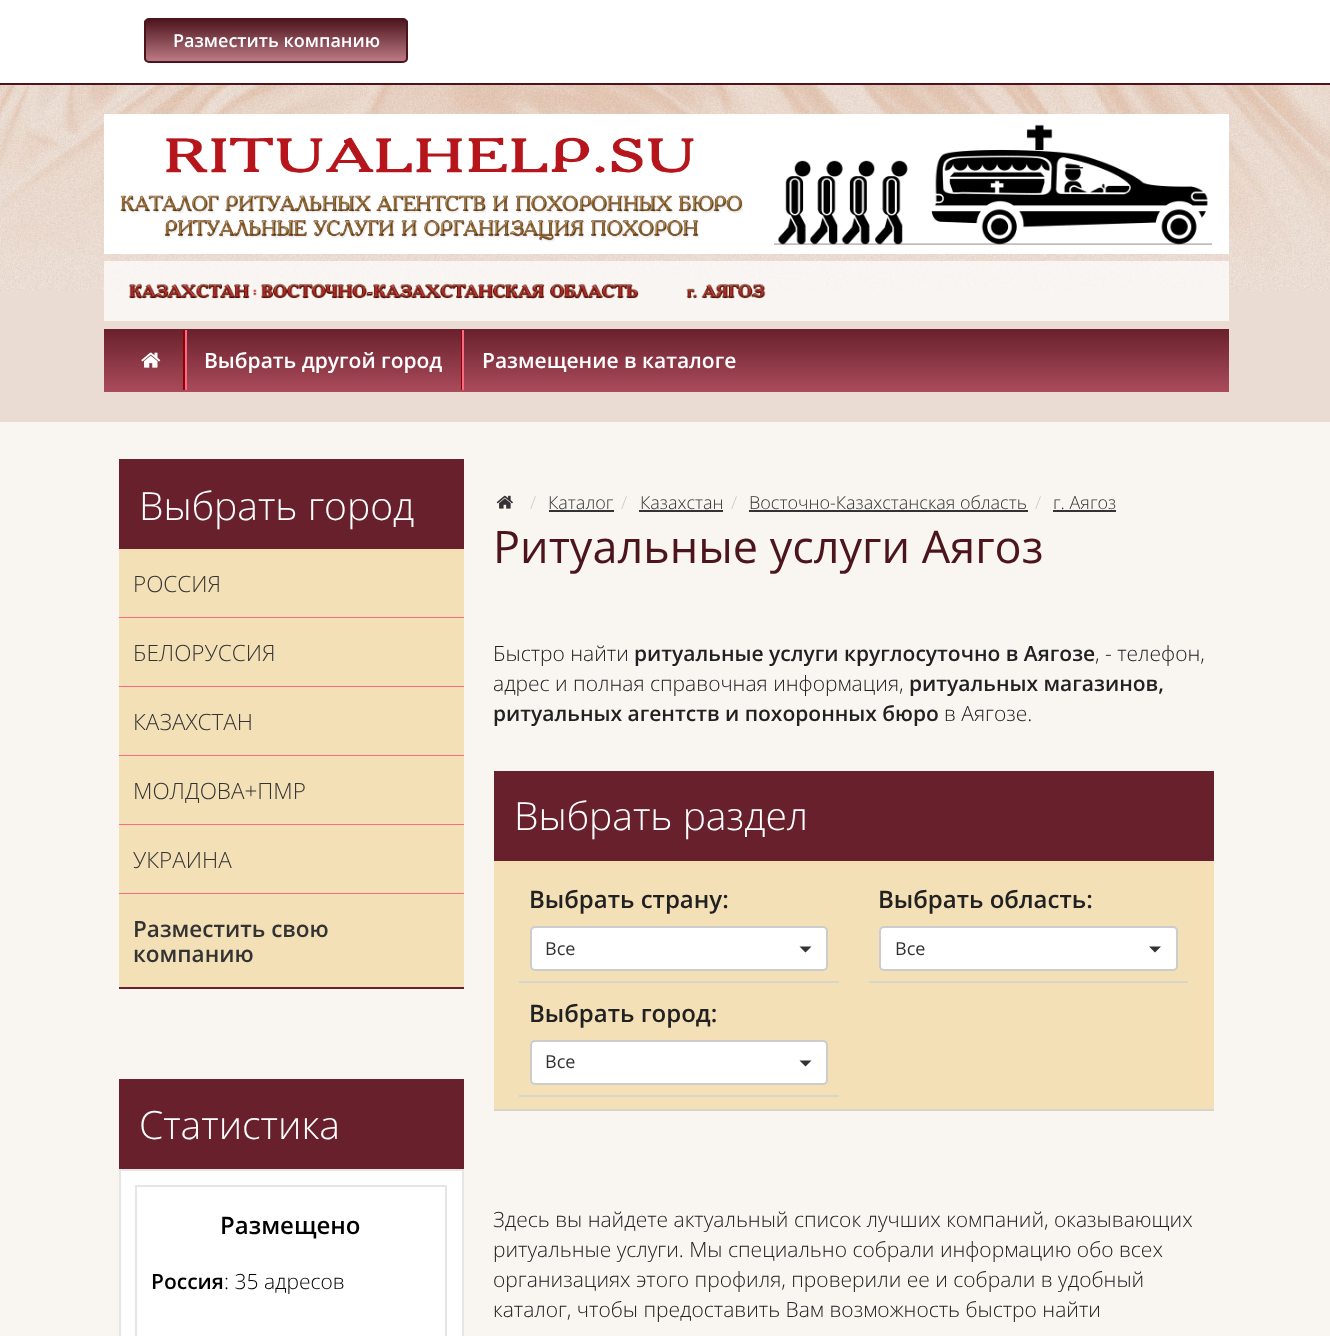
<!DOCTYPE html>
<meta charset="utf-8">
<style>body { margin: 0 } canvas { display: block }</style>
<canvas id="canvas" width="1330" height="1336"></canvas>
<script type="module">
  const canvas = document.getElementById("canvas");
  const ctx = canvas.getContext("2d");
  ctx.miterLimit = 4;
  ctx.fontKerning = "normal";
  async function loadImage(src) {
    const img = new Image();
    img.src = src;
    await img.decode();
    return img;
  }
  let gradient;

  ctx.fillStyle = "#eadcd2";
  ctx.fillRect(0, 0, 1330, 1336);
  ctx.drawImage(await loadImage("img1.png"), 0, 85, 1330, 206);
  ctx.fillStyle = "#ffffff";
  ctx.fillRect(0, 0, 1330, 83);
  ctx.fillStyle = "#4c141d";
  ctx.fillRect(0, 83, 1330, 2);
  ctx.save();
  ctx.beginPath();
  ctx.roundRect(144, 18, 264, 45, 5);
  ctx.clip();
  gradient = ctx.createLinearGradient(276, 19, 276, 62);
  gradient.addColorStop(0, "#4c141d");
  gradient.addColorStop(1, "#be7c86");
  ctx.fillStyle = gradient;
  ctx.fillRect(144, 20, 264, 42);
  ctx.restore();
  ctx.beginPath();
  ctx.roundRect(145, 19, 262, 43, 4);
  ctx.strokeStyle = "#4c141d";
  ctx.lineWidth = 2;
  ctx.stroke();
  ctx.font = "600 18px Open Sans";
  ctx.fillStyle = "#ffffff";
  ctx.fillText("Разместить компанию", 173, 47);
  ctx.fillRect(104, 114, 1125, 140);
  ctx.drawImage(await loadImage("img2.png"), 120, 137, 623, 105);
  ctx.drawImage(await loadImage("img3.png"), 774, 124, 438, 121);
  ctx.fillStyle = "rgba(255, 255, 255, 0.7)";
  ctx.fillRect(104, 261, 1125, 60);
  ctx.drawImage(await loadImage("img4.png"), 128, 283, 511, 16);
  ctx.drawImage(await loadImage("img5.png"), 686, 283, 80, 16);
  gradient = ctx.createLinearGradient(666, 328, 666, 392);
  gradient.addColorStop(0, "#68202c");
  gradient.addColorStop(1, "#ab4b5b");
  ctx.fillStyle = gradient;
  ctx.fillRect(104, 329, 1125, 63);
  ctx.drawImage(await loadImage("img6.png"), 141, 352, 20, 16);
  ctx.fillStyle = "#900101";
  ctx.fillRect(183, 330, 2, 60);
  ctx.fillStyle = "#fb6a82";
  ctx.fillRect(185, 330, 2, 60);
  ctx.font = "600 21px Open Sans";
  ctx.fillStyle = "#ffffff";
  ctx.fillText("Выбрать другой город", 204, 368);
  ctx.fillStyle = "#900101";
  ctx.fillRect(461, 330, 1, 60);
  ctx.fillStyle = "#fb6a82";
  ctx.fillRect(462, 330, 2, 60);
  ctx.fillStyle = "#ffffff";
  ctx.fillText("Размещение в каталоге", 482, 368);
  ctx.fillStyle = "#f9f5f1";
  ctx.fillRect(0, 422, 1330, 914);
  ctx.fillStyle = "#68202c";
  ctx.fillRect(119, 459, 345, 90);
  ctx.font = "300 39px Open Sans";
  ctx.fillStyle = "#ffffff";
  ctx.fillText("Выбрать город", 139, 520);
  ctx.fillStyle = "#fb6a82";
  ctx.fillRect(119, 617, 345, 1);
  ctx.fillStyle = "#f3e0b6";
  ctx.fillRect(119, 549, 345, 68);
  ctx.font = "300 22.5px Open Sans";
  ctx.fillStyle = "#333333";
  ctx.fillText("РОССИЯ", 133, 592);
  ctx.fillStyle = "#fb6a82";
  ctx.fillRect(119, 686, 345, 1);
  ctx.fillStyle = "#f3e0b6";
  ctx.fillRect(119, 618, 345, 68);
  ctx.fillStyle = "#333333";
  ctx.fillText("БЕЛОРУССИЯ", 133, 661);
  ctx.fillStyle = "#fb6a82";
  ctx.fillRect(119, 755, 345, 1);
  ctx.fillStyle = "#f3e0b6";
  ctx.fillRect(119, 687, 345, 68);
  ctx.fillStyle = "#333333";
  ctx.fillText("КАЗАХСТАН", 133, 730);
  ctx.fillStyle = "#fb6a82";
  ctx.fillRect(119, 824, 345, 1);
  ctx.fillStyle = "#f3e0b6";
  ctx.fillRect(119, 756, 345, 68);
  ctx.fillStyle = "#333333";
  ctx.fillText("МОЛДОВА+ПМР", 133, 799);
  ctx.fillStyle = "#fb6a82";
  ctx.fillRect(119, 893, 345, 1);
  ctx.fillStyle = "#f3e0b6";
  ctx.fillRect(119, 825, 345, 68);
  ctx.fillStyle = "#333333";
  ctx.fillText("УКРАИНА", 133, 868);
  ctx.fillStyle = "#68202c";
  ctx.fillRect(119, 987, 345, 2);
  ctx.fillStyle = "#f3e0b6";
  ctx.fillRect(119, 894, 345, 93);
  ctx.font = "600 22.5px Open Sans";
  ctx.fillStyle = "#333333";
  ctx.fillText("Разместить свою", 133, 937);
  ctx.fillText("компанию", 133, 962);
  ctx.fillStyle = "#68202c";
  ctx.fillRect(119, 1079, 345, 90);
  ctx.font = "300 39px Open Sans";
  ctx.fillStyle = "#ffffff";
  ctx.fillText("Статистика", 139, 1139);
  ctx.beginPath();
  ctx.rect(120, 1170, 343, 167);
  ctx.fill();
  ctx.strokeStyle = "#e5e5e5";
  ctx.stroke();
  ctx.strokeRect(136, 1186, 310, 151);
  ctx.font = "600 24px Open Sans";
  ctx.fillStyle = "#000000";
  ctx.fillText("Размещено", 220, 1234);
  ctx.font = "600 21px Open Sans";
  ctx.fillText("Россия", 151, 1289);
  ctx.font = "300 21px Open Sans";
  ctx.fillText(": 35 адресов", 224, 1289);
  ctx.drawImage(await loadImage("img7.png"), 496, 495, 17, 14);
  ctx.font = "300 18px Open Sans";
  ctx.fillStyle = "#cccccc";
  ctx.fillText("/", 530, 509);
  ctx.fillStyle = "#333333";
  ctx.fillText("Каталог", 548, 509);
  ctx.fillRect(549, 510, 65, 2);
  ctx.fillStyle = "#cccccc";
  ctx.fillText("/", 621, 509);
  ctx.fillStyle = "#333333";
  ctx.fillText("Казахстан", 640, 509);
  ctx.fillRect(639, 510, 84, 2);
  ctx.fillStyle = "#cccccc";
  ctx.fillText("/", 731, 509);
  ctx.fillStyle = "#333333";
  ctx.fillText("Восточно-Казахстанская область", 749, 509);
  ctx.fillRect(749, 510, 279, 2);
  ctx.fillStyle = "#cccccc";
  ctx.fillText("/", 1035, 509);
  ctx.fillStyle = "#333333";
  ctx.fillText("г. Аягоз", 1053, 509);
  ctx.fillRect(1053, 510, 63, 2);
  ctx.font = "45px Open Sans";
  ctx.fillStyle = "#4c141d";
  ctx.fillText("Ритуальные услуги Аягоз", 493, 563);
  ctx.font = "300 21px Open Sans";
  ctx.fillStyle = "#212121";
  ctx.fillText("Быстро найти", 493, 661);
  ctx.font = "600 21px Open Sans";
  ctx.fillText("ритуальные услуги круглосуточно в Аягозе", 634, 661);
  ctx.font = "300 21px Open Sans";
  ctx.fillText(", - телефон,", 1095, 661);
  ctx.fillText("адрес и полная справочная информация,", 493, 691);
  ctx.font = "600 21px Open Sans";
  ctx.fillText("ритуальных магазинов,", 909, 691);
  ctx.fillText("ритуальных агентств и похоронных бюро", 493, 721);
  ctx.font = "300 21px Open Sans";
  ctx.fillText("в Аягозе.", 944, 721);
  ctx.fillStyle = "#f3e0b6";
  ctx.fillRect(494, 861, 720, 248);
  ctx.fillStyle = "#68202c";
  ctx.fillRect(494, 771, 720, 90);
  ctx.font = "300 39px Open Sans";
  ctx.fillStyle = "#ffffff";
  ctx.fillText("Выбрать раздел", 514, 830);
  ctx.fillStyle = "#d8d6c9";
  ctx.fillRect(494, 1109, 720, 2);
  ctx.fillRect(519, 981, 320, 2);
  ctx.font = "600 24px Open Sans";
  ctx.fillStyle = "#212121";
  ctx.fillText("Выбрать страну:", 529, 908);
  ctx.fillStyle = "#ffffff";
  ctx.beginPath();
  ctx.roundRect(531, 927, 296, 43, 4);
  ctx.fill();
  ctx.strokeStyle = "#cccccc";
  ctx.stroke();
  ctx.font = "18px Open Sans";
  ctx.fillStyle = "#333333";
  ctx.fillText("Все", 545, 955);
  ctx.beginPath();
  ctx.moveTo(799.5, 946.5);
  ctx.lineTo(811.5, 946.5);
  ctx.lineTo(805.5, 952.5);
  ctx.closePath();
  ctx.fill();
  ctx.fillStyle = "#d8d6c9";
  ctx.fillRect(869, 981, 319, 2);
  ctx.font = "600 24px Open Sans";
  ctx.fillStyle = "#212121";
  ctx.fillText("Выбрать область:", 878, 908);
  ctx.fillStyle = "#ffffff";
  ctx.beginPath();
  ctx.roundRect(880, 927, 297, 43, 4);
  ctx.fill();
  ctx.stroke();
  ctx.font = "18px Open Sans";
  ctx.fillStyle = "#333333";
  ctx.fillText("Все", 895, 955);
  ctx.beginPath();
  ctx.moveTo(1149, 946.5);
  ctx.lineTo(1161, 946.5);
  ctx.lineTo(1155, 952.5);
  ctx.closePath();
  ctx.fill();
  ctx.fillStyle = "#d8d6c9";
  ctx.fillRect(519, 1095, 320, 2);
  ctx.font = "600 24px Open Sans";
  ctx.fillStyle = "#212121";
  ctx.fillText("Выбрать город:", 529, 1022);
  ctx.fillStyle = "#ffffff";
  ctx.beginPath();
  ctx.roundRect(531, 1041, 296, 43, 4);
  ctx.fill();
  ctx.stroke();
  ctx.font = "18px Open Sans";
  ctx.fillStyle = "#333333";
  ctx.fillText("Все", 545, 1068);
  ctx.beginPath();
  ctx.moveTo(799.5, 1060.5);
  ctx.lineTo(811.5, 1060.5);
  ctx.lineTo(805.5, 1066.5);
  ctx.closePath();
  ctx.fill();
  ctx.font = "300 21px Open Sans";
  ctx.fillStyle = "#212121";
  ctx.fillText("Здесь вы найдете актуальный список лучших компаний, оказывающих", 493, 1227);
  ctx.fillText("ритуальные услуги. Мы специально собрали информацию обо всех", 493, 1257);
  ctx.fillText("организациях этого профиля, проверили ее и собрали в удобный", 493, 1287);
  ctx.fillText("каталог, чтобы предоставить Вам возможность быстро найти", 493, 1317);
</script>
